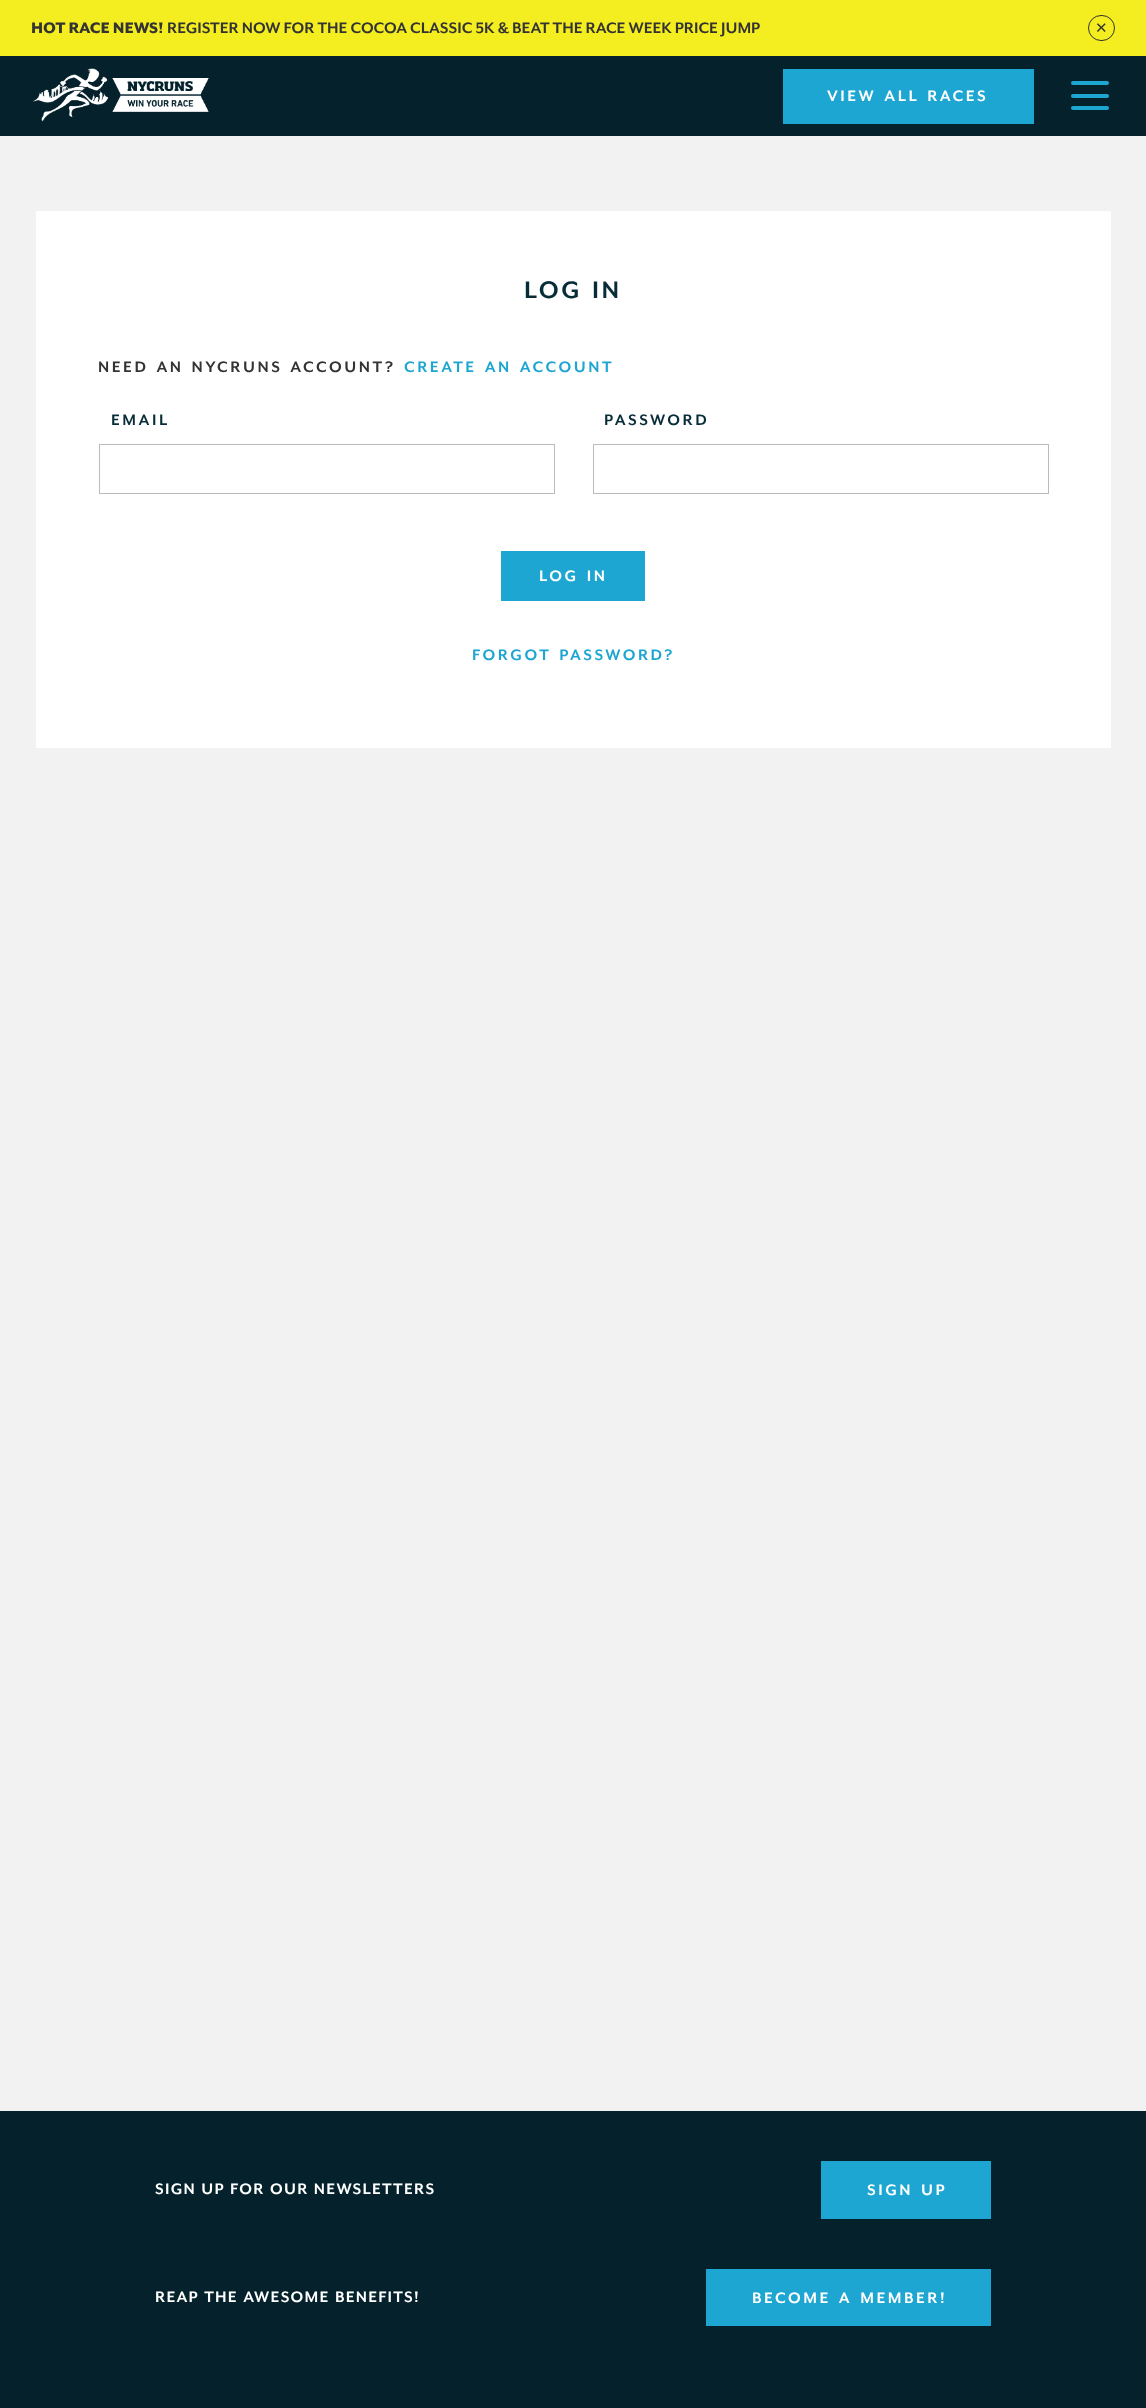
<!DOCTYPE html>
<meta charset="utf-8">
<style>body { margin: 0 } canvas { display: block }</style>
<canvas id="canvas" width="1146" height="2408"></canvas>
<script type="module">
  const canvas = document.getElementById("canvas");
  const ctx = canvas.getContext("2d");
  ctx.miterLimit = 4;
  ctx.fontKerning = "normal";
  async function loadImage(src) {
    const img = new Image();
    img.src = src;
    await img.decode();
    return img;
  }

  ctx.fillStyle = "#05222c";
  ctx.fillRect(0, 0, 1146, 2408);
  ctx.fillStyle = "#f4ed1f";
  ctx.fillRect(0, 0, 1146, 56);
  ctx.font = "900 17.5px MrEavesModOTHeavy";
  ctx.fillStyle = "#333333";
  ctx.fillText("HOT RACE NEWS!", 31, 33);
  ctx.font = "bold 17.5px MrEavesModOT";
  ctx.fillText("REGISTER NOW FOR THE COCOA CLASSIC 5K & BEAT THE RACE WEEK PRICE JUMP", 167, 33);
  ctx.beginPath();
  ctx.roundRect(1088.5, 15.5, 26, 25, 12.5);
  ctx.strokeStyle = "#333333";
  ctx.stroke();
  ctx.font = "15px DejaVu Sans";
  ctx.fillText("✕", 1095, 33);
  ctx.drawImage(await loadImage("img1.png"), 33, 68, 176, 54);
  ctx.fillStyle = "#1ea6d3";
  ctx.fillRect(783, 69, 251, 55);
  ctx.letterSpacing = "2.5px";
  ctx.wordSpacing = "2.5px";
  ctx.font = "bold 17.5px MrEavesModOT";
  ctx.fillStyle = "#ffffff";
  ctx.fillText("VIEW ALL RACES", 827, 101);
  ctx.fillStyle = "#1ea6d3";
  ctx.beginPath();
  ctx.roundRect(1071, 106, 38, 4, 2);
  ctx.fill();
  ctx.beginPath();
  ctx.roundRect(1071, 81, 38, 4, 2);
  ctx.fill();
  ctx.beginPath();
  ctx.roundRect(1071, 94, 38, 4, 2);
  ctx.fill();
  ctx.fillStyle = "#f2f2f2";
  ctx.fillRect(0, 136, 1146, 1975);
  ctx.fillStyle = "#ffffff";
  ctx.fillRect(36, 211, 1075, 537);
  ctx.font = "bold 27.5px MrEavesModOT";
  ctx.fillStyle = "#082d39";
  ctx.fillText("LOG IN", 524, 298);
  ctx.font = "bold 17.5px MrEavesModOT";
  ctx.fillStyle = "#333333";
  ctx.fillText("NEED AN NYCRUNS ACCOUNT?", 98, 372);
  ctx.fillStyle = "#1ea6d3";
  ctx.fillText("CREATE AN ACCOUNT", 404, 372);
  ctx.wordSpacing = "0px";
  ctx.fillStyle = "#082d39";
  ctx.fillText("EMAIL", 111, 425);
  ctx.strokeStyle = "#bbbbbb";
  ctx.strokeRect(99.5, 444.5, 455, 49);
  ctx.fillText("PASSWORD", 604, 425);
  ctx.strokeRect(593.5, 444.5, 455, 49);
  ctx.fillStyle = "#1ea6d3";
  ctx.fillRect(501, 551, 144, 50);
  ctx.wordSpacing = "2.5px";
  ctx.fillStyle = "#ffffff";
  ctx.fillText("LOG IN", 539, 581);
  ctx.fillStyle = "#1ea6d3";
  ctx.fillText("FORGOT PASSWORD?", 472, 660);
  ctx.letterSpacing = "1.25px";
  ctx.wordSpacing = "1px";
  ctx.fillStyle = "#ffffff";
  ctx.fillText("SIGN UP FOR OUR NEWSLETTERS", 155, 2194);
  ctx.fillStyle = "#1ea6d3";
  ctx.fillRect(821, 2161, 170, 58);
  ctx.letterSpacing = "2.5px";
  ctx.wordSpacing = "2.5px";
  ctx.fillStyle = "#ffffff";
  ctx.fillText("SIGN UP", 867, 2195);
  ctx.letterSpacing = "1.25px";
  ctx.wordSpacing = "1px";
  ctx.fillText("REAP THE AWESOME BENEFITS!", 155, 2302);
  ctx.fillStyle = "#1ea6d3";
  ctx.fillRect(706, 2269, 285, 57);
  ctx.letterSpacing = "2.5px";
  ctx.wordSpacing = "2.5px";
  ctx.fillStyle = "#ffffff";
  ctx.fillText("BECOME A MEMBER!", 752, 2303);
</script>
